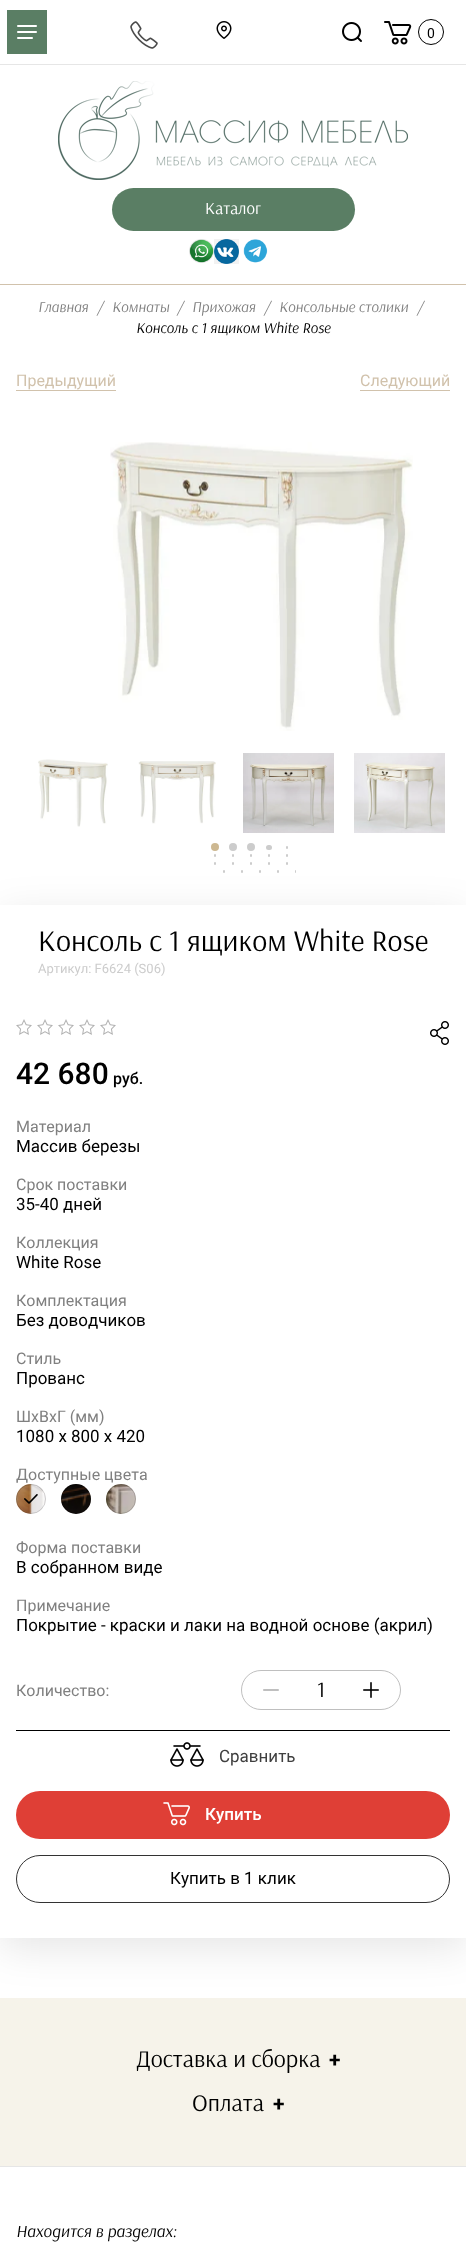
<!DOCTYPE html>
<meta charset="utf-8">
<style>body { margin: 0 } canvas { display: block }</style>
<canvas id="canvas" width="466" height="2252"></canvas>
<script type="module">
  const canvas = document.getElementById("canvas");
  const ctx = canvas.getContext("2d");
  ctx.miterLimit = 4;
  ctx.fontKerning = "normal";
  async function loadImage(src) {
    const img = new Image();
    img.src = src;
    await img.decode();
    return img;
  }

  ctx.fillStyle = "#ffffff";
  ctx.fillRect(0, 0, 466, 2252);
  ctx.fillStyle = "#d1c2ac";
  ctx.fillRect(0, 284, 466, 1);
  ctx.fillStyle = "#e6e6e6";
  ctx.fillRect(0, 64, 466, 1);
  ctx.fillStyle = "#5a7e64";
  ctx.fillRect(7, 10, 40, 44);
  ctx.drawImage(await loadImage("img1.png"), 17, 25, 20, 14);
  ctx.drawImage(await loadImage("img2.png"), 130, 21, 28, 28);
  ctx.drawImage(await loadImage("img3.png"), 216, 21, 16, 18);
  ctx.drawImage(await loadImage("img4.png"), 342, 22, 20, 20);
  ctx.drawImage(await loadImage("img5.png"), 384, 21, 28, 24);
  ctx.beginPath();
  ctx.arc(431, 32, 12.5, 0, Math.PI * 2);
  ctx.strokeStyle = "#000000";
  ctx.stroke();
  ctx.font = "14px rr";
  ctx.fillStyle = "#000000";
  ctx.fillText("0", 427, 38);
  ctx.drawImage(await loadImage("img6.png"), 58, 81, 350, 99);
  ctx.fillStyle = "#5a7e64";
  ctx.beginPath();
  ctx.roundRect(112, 188, 243, 43, 21.5);
  ctx.fill();
  ctx.font = "17px Arsenal";
  ctx.fillStyle = "#ffffff";
  ctx.fillText("Каталог", 205, 214);
  ctx.drawImage(await loadImage("img7.png"), 189, 239, 25, 24);
  ctx.drawImage(await loadImage("img8.png"), 214, 239, 25, 25);
  ctx.drawImage(await loadImage("img9.png"), 243, 239, 25, 24);
  ctx.font = "italic 15px Arsenal";
  ctx.fillStyle = "#808080";
  ctx.fillText("Главная", 38, 312);
  ctx.fillText("/", 97, 312);
  ctx.fillText("Комнаты", 112, 312);
  ctx.fillText("/", 177, 312);
  ctx.fillText("Прихожая", 192, 312);
  ctx.fillText("/", 264, 312);
  ctx.fillText("Консольные столики", 279, 312);
  ctx.fillText("/", 417, 312);
  ctx.fillStyle = "#000000";
  ctx.fillText("Консоль с 1 ящиком White Rose", 136, 333);
  ctx.fillStyle = "#d1c2ac";
  ctx.fillRect(16, 390, 100, 1);
  ctx.font = "16px rr";
  ctx.fillText("Предыдущий", 16, 386);
  ctx.fillRect(360, 390, 90, 1);
  ctx.fillText("Следующий", 360, 386);
  ctx.drawImage(await loadImage("img10.png"), 110, 442, 303, 289);
  ctx.drawImage(await loadImage("img11.png"), 38, 759, 70, 68);
  ctx.drawImage(await loadImage("img12.png"), 138, 761, 78, 63);
  ctx.drawImage(await loadImage("img13.png"), 243, 753, 91, 80);
  ctx.drawImage(await loadImage("img14.png"), 354, 753, 91, 80);
  ctx.fillStyle = "#cdb891";
  ctx.beginPath();
  ctx.arc(215, 847, 4, 0, Math.PI * 2);
  ctx.fill();
  ctx.fillStyle = "#cccccc";
  ctx.beginPath();
  ctx.arc(233, 847, 4, 0, Math.PI * 2);
  ctx.fill();
  ctx.beginPath();
  ctx.arc(251, 847, 4, 0, Math.PI * 2);
  ctx.fill();
  ctx.beginPath();
  ctx.roundRect(266, 845, 6, 5, 2.5);
  ctx.fill();
  ctx.beginPath();
  ctx.roundRect(286, 846, 2, 3, 1);
  ctx.fill();
  ctx.beginPath();
  ctx.roundRect(214, 854, 2, 3, 1);
  ctx.fill();
  ctx.beginPath();
  ctx.roundRect(232, 854, 2, 3, 1);
  ctx.fill();
  ctx.beginPath();
  ctx.roundRect(250, 854, 2, 3, 1);
  ctx.fill();
  ctx.beginPath();
  ctx.roundRect(268, 854, 2, 3, 1);
  ctx.fill();
  ctx.beginPath();
  ctx.roundRect(286, 854, 2, 3, 1);
  ctx.fill();
  ctx.beginPath();
  ctx.roundRect(214, 862, 2, 3, 1);
  ctx.fill();
  ctx.beginPath();
  ctx.roundRect(232, 862, 2, 3, 1);
  ctx.fill();
  ctx.beginPath();
  ctx.roundRect(250, 862, 2, 3, 1);
  ctx.fill();
  ctx.beginPath();
  ctx.roundRect(268, 862, 2, 3, 1);
  ctx.fill();
  ctx.beginPath();
  ctx.roundRect(286, 862, 2, 3, 1);
  ctx.fill();
  ctx.beginPath();
  ctx.roundRect(223, 870, 2, 3, 1);
  ctx.fill();
  ctx.beginPath();
  ctx.roundRect(241, 870, 2, 3, 1);
  ctx.fill();
  ctx.beginPath();
  ctx.roundRect(259, 870, 2, 3, 1);
  ctx.fill();
  ctx.beginPath();
  ctx.roundRect(277, 870, 2, 3, 1);
  ctx.fill();
  ctx.beginPath();
  ctx.roundRect(295, 870, 1, 3, [1, 0, 0, 1]);
  ctx.fill();
  ctx.fillStyle = "#f6f3ea";
  ctx.fillRect(0, 1998, 466, 168);
  ctx.save();
  ctx.beginPath();
  ctx.moveTo(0, 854);
  ctx.lineTo(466, 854);
  ctx.lineTo(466, 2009);
  ctx.lineTo(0, 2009);
  ctx.closePath();
  ctx.moveTo(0, 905);
  ctx.lineTo(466, 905);
  ctx.lineTo(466, 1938);
  ctx.lineTo(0, 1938);
  ctx.closePath();
  ctx.clip("evenodd");
  ctx.fillStyle = "rgba(0, 0, 0, 0.1)";
  ctx.filter = "blur(20px)";
  ctx.beginPath();
  ctx.rect(0, 915, 466, 1033);
  ctx.fill();
  ctx.filter = "none";
  ctx.restore();
  ctx.font = "30px Arsenal";
  ctx.fillStyle = "#000000";
  ctx.fillText("Консоль с 1 ящиком White Rose", 38, 951);
  ctx.font = "13px rr";
  ctx.fillStyle = "#cccccc";
  ctx.fillText("Артикул: F6624 (S06)", 38, 973);
  ctx.drawImage(await loadImage("img15.png"), 16, 1019, 100, 16);
  ctx.drawImage(await loadImage("img16.png"), 430, 1021, 19, 24);
  ctx.font = "500 30px Roboto";
  ctx.fillStyle = "#000000";
  ctx.fillText("42 680", 16, 1084);
  ctx.font = "500 16px Roboto";
  ctx.fillText("руб.", 113, 1084);
  ctx.font = "16px rr";
  ctx.fillStyle = "#808080";
  ctx.fillText("Материал", 16, 1132);
  ctx.font = "17px rr";
  ctx.fillStyle = "#000000";
  ctx.fillText("Массив березы", 16, 1152);
  ctx.font = "16px rr";
  ctx.fillStyle = "#808080";
  ctx.fillText("Срок поставки", 16, 1190);
  ctx.font = "17px rr";
  ctx.fillStyle = "#000000";
  ctx.fillText("35-40 дней", 16, 1210);
  ctx.font = "16px rr";
  ctx.fillStyle = "#808080";
  ctx.fillText("Коллекция", 16, 1248);
  ctx.font = "17px rr";
  ctx.fillStyle = "#000000";
  ctx.fillText("White Rose", 16, 1268);
  ctx.font = "16px rr";
  ctx.fillStyle = "#808080";
  ctx.fillText("Комплектация", 16, 1306);
  ctx.font = "17px rr";
  ctx.fillStyle = "#000000";
  ctx.fillText("Без доводчиков", 16, 1326);
  ctx.font = "16px rr";
  ctx.fillStyle = "#808080";
  ctx.fillText("Стиль", 16, 1364);
  ctx.font = "17px rr";
  ctx.fillStyle = "#000000";
  ctx.fillText("Прованс", 16, 1384);
  ctx.font = "16px rr";
  ctx.fillStyle = "#808080";
  ctx.fillText("ШхВхГ (мм)", 16, 1422);
  ctx.font = "17px rr";
  ctx.fillStyle = "#000000";
  ctx.fillText("1080 x 800 x 420", 16, 1442);
  ctx.font = "16px rr";
  ctx.fillStyle = "#808080";
  ctx.fillText("Доступные цвета", 16, 1480);
  ctx.drawImage(await loadImage("img17.png"), 16, 1484, 30, 30);
  ctx.beginPath();
  ctx.arc(31, 1499, 14.5, 0, Math.PI * 2);
  ctx.strokeStyle = "rgba(0, 0, 0, 0.15)";
  ctx.stroke();
  ctx.drawImage(await loadImage("img18.png"), 24, 1494, 14, 10);
  ctx.drawImage(await loadImage("img19.png"), 61, 1484, 30, 30);
  ctx.beginPath();
  ctx.arc(76, 1499, 14.5, 0, Math.PI * 2);
  ctx.stroke();
  ctx.drawImage(await loadImage("img20.png"), 106, 1484, 30, 30);
  ctx.beginPath();
  ctx.arc(121, 1499, 14.5, 0, Math.PI * 2);
  ctx.stroke();
  ctx.fillText("Форма поставки", 16, 1553);
  ctx.font = "17px rr";
  ctx.fillStyle = "#000000";
  ctx.fillText("В собранном виде", 16, 1573);
  ctx.font = "16px rr";
  ctx.fillStyle = "#808080";
  ctx.fillText("Примечание", 16, 1611);
  ctx.font = "17px rr";
  ctx.fillStyle = "#000000";
  ctx.fillText("Покрытие - краски и лаки на водной основе (акрил)", 16, 1631);
  ctx.font = "16px rr";
  ctx.fillStyle = "#808080";
  ctx.fillText("Количество:", 16, 1696);
  ctx.beginPath();
  ctx.roundRect(241.5, 1670.5, 159, 39, 19.5);
  ctx.strokeStyle = "#bfbfbf";
  ctx.stroke();
  ctx.drawImage(await loadImage("img21.png"), 263, 1689, 16, 2);
  ctx.font = "22px Arsenal";
  ctx.fillStyle = "#000000";
  ctx.fillText("1", 317, 1697);
  ctx.drawImage(await loadImage("img22.png"), 363, 1682, 16, 16);
  ctx.fillRect(16, 1730, 434, 1);
  ctx.drawImage(await loadImage("img23.png"), 170, 1742, 34, 25);
  ctx.font = "17px rr";
  ctx.fillStyle = "#404040";
  ctx.fillText("Сравнить", 219, 1762);
  ctx.fillStyle = "#df3f36";
  ctx.beginPath();
  ctx.roundRect(16, 1791, 434, 48, 24);
  ctx.fill();
  ctx.drawImage(await loadImage("img24.png"), 163, 1802, 27, 24);
  ctx.font = "500 17px Roboto";
  ctx.fillStyle = "#ffffff";
  ctx.fillText("Купить", 205, 1820);
  ctx.beginPath();
  ctx.roundRect(16.5, 1855.5, 433, 47, 23.5);
  ctx.strokeStyle = "#333333";
  ctx.stroke();
  ctx.font = "17px rr";
  ctx.fillStyle = "#000000";
  ctx.fillText("Купить в 1 клик", 170, 1884);
  ctx.font = "24px Arsenal";
  ctx.fillText("Доставка и сборка", 136, 2067);
  ctx.font = "bold 21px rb";
  ctx.fillText("+", 329, 2067);
  ctx.font = "24px Arsenal";
  ctx.fillText("Оплата", 192, 2111);
  ctx.font = "bold 21px rb";
  ctx.fillText("+", 273, 2111);
  ctx.fillStyle = "#e6e6e6";
  ctx.fillRect(0, 2166, 466, 1);
  ctx.font = "italic 17px Arsenal";
  ctx.fillStyle = "#000000";
  ctx.fillText("Находится в разделах:", 16, 2237);
</script>
